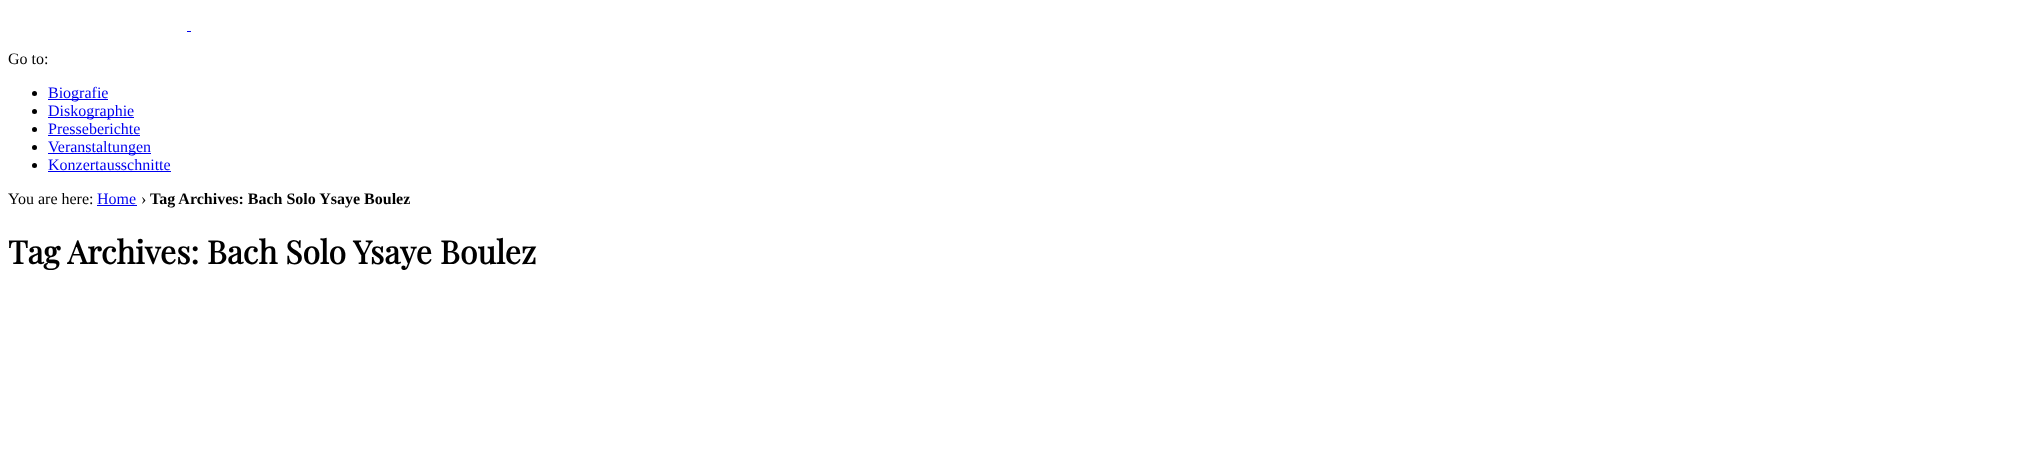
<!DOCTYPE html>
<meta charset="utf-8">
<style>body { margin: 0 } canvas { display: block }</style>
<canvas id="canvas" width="2017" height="451"></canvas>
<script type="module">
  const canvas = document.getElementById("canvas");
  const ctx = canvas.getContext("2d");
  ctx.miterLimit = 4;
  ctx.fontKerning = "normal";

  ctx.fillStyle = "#ffffff";
  ctx.fillRect(0, 0, 2017, 451);
  ctx.fillStyle = "#0000ee";
  ctx.fillRect(187, 31, 4, 1);
  ctx.font = "16px Liberation Serif";
  ctx.fillStyle = "#000000";
  ctx.fillText("Go to:", 8, 64);
  ctx.beginPath();
  ctx.arc(34.5, 93.5, 2.5, 0, Math.PI * 2);
  ctx.fill();
  ctx.fillStyle = "#0000ee";
  ctx.fillRect(48, 99, 60, 1);
  ctx.fillText("Biografie", 48, 98);
  ctx.fillStyle = "#000000";
  ctx.beginPath();
  ctx.arc(34.5, 111.5, 2.5, 0, Math.PI * 2);
  ctx.fill();
  ctx.fillStyle = "#0000ee";
  ctx.fillRect(48, 117, 86, 1);
  ctx.fillText("Diskographie", 48, 116);
  ctx.fillStyle = "#000000";
  ctx.beginPath();
  ctx.arc(34.5, 129.5, 2.5, 0, Math.PI * 2);
  ctx.fill();
  ctx.fillStyle = "#0000ee";
  ctx.fillText("Presseberichte", 48, 134);
  ctx.fillRect(48, 135, 92, 1);
  ctx.fillStyle = "#000000";
  ctx.beginPath();
  ctx.arc(34.5, 147.5, 2.5, 0, Math.PI * 2);
  ctx.fill();
  ctx.fillStyle = "#0000ee";
  ctx.fillRect(48, 153, 103, 1);
  ctx.fillText("Veranstaltungen", 48, 152);
  ctx.fillStyle = "#000000";
  ctx.beginPath();
  ctx.arc(34.5, 165.5, 2.5, 0, Math.PI * 2);
  ctx.fill();
  ctx.fillStyle = "#0000ee";
  ctx.fillText("Konzertausschnitte", 48, 170);
  ctx.fillRect(48, 171, 123, 1);
  ctx.fillStyle = "#000000";
  ctx.fillText("You are here:", 8, 204);
  ctx.fillStyle = "#0000ee";
  ctx.fillText("Home", 97, 204);
  ctx.fillRect(97, 205, 40, 1);
  ctx.fillStyle = "#000000";
  ctx.fillText("›", 141, 204);
  ctx.font = "bold 16px Liberation Serif";
  ctx.fillText("Tag Archives: Bach Solo Ysaye Boulez", 150, 204);
  ctx.font = "bold 32px Playfair Display";
  ctx.fillText("Tag Archives: Bach Solo Ysaye Boulez", 8, 264);
</script>
